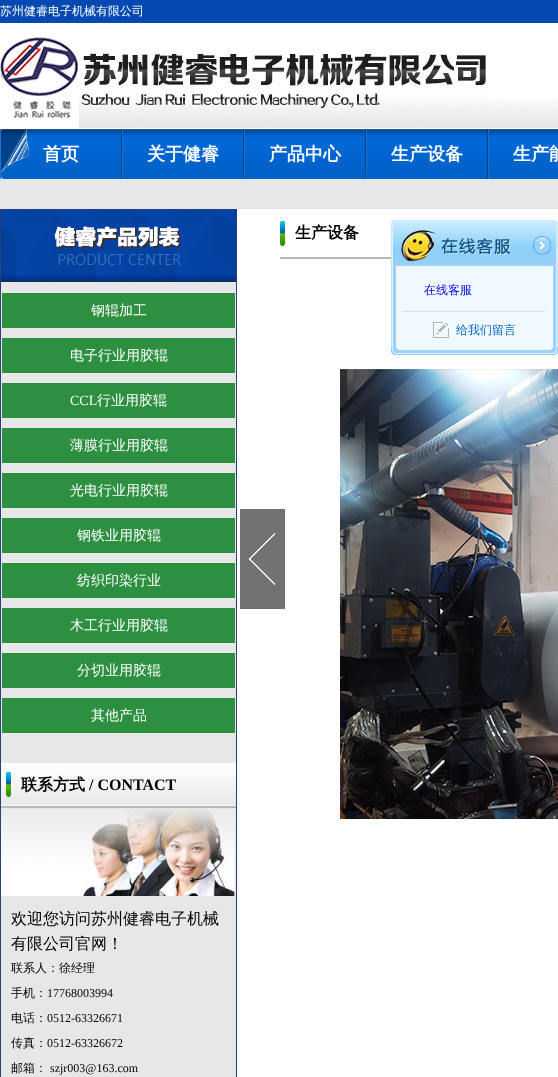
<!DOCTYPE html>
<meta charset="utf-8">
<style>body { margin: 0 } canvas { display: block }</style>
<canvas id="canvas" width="558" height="1077"></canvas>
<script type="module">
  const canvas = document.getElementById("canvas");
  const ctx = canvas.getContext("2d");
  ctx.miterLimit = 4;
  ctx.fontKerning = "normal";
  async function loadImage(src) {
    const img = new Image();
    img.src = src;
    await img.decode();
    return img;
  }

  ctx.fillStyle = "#ffffff";
  ctx.fillRect(0, 0, 558, 1077);
  ctx.fillStyle = "#0449b1";
  ctx.fillRect(0, 0, 558, 23);
  ctx.font = "500 12px WenQuanYi Zen Hei";
  ctx.fillStyle = "#ffffff";
  ctx.fillText("苏州健睿电子机械有限公司", 0, 15);
  ctx.drawImage(await loadImage("img1.png"), 488, 98, 70, 30);
  ctx.drawImage(await loadImage("img2.png"), 0, 31, 488, 97);
  ctx.drawImage(await loadImage("img3.png"), 29, 129, 529, 50);
  ctx.drawImage(await loadImage("img4.png"), 1, 129, 28, 50);
  ctx.fillStyle = "#004289";
  ctx.fillRect(121, 129, 1, 50);
  ctx.fillStyle = "#1a72cf";
  ctx.fillRect(0, 129, 1, 50);
  ctx.font = "bold 18px WenQuanYi Zen Hei";
  ctx.fillStyle = "#ffffff";
  ctx.fillText("首页", 43, 160);
  ctx.fillStyle = "#004289";
  ctx.fillRect(243, 129, 1, 50);
  ctx.fillStyle = "#1a72cf";
  ctx.fillRect(122, 129, 1, 50);
  ctx.fillStyle = "#ffffff";
  ctx.fillText("关于健睿", 147, 160);
  ctx.fillStyle = "#004289";
  ctx.fillRect(365, 129, 1, 50);
  ctx.fillStyle = "#1a72cf";
  ctx.fillRect(244, 129, 1, 50);
  ctx.fillStyle = "#ffffff";
  ctx.fillText("产品中心", 269, 160);
  ctx.fillStyle = "#004289";
  ctx.fillRect(487, 129, 1, 50);
  ctx.fillStyle = "#1a72cf";
  ctx.fillRect(366, 129, 1, 50);
  ctx.fillStyle = "#ffffff";
  ctx.fillText("生产设备", 391, 160);
  ctx.fillStyle = "#1a72cf";
  ctx.fillRect(488, 129, 1, 50);
  ctx.fillStyle = "#ffffff";
  ctx.fillText("生产能", 513, 160);
  ctx.fillStyle = "#e7e7e7";
  ctx.fillRect(0, 179, 558, 30);
  ctx.fillStyle = "#b8b8b8";
  ctx.fillRect(280, 257, 111, 2);
  ctx.drawImage(await loadImage("img5.png"), 280, 221, 6, 25);
  ctx.font = "bold 16px WenQuanYi Zen Hei";
  ctx.fillStyle = "#000000";
  ctx.fillText("生产设备", 295, 238);
  ctx.drawImage(await loadImage("img6.png"), 240, 509, 45, 100);
  ctx.drawImage(await loadImage("img7.png"), 340, 369, 218, 450);
  ctx.fillStyle = "#e7e7e7";
  ctx.fillRect(1, 282, 235, 795);
  ctx.strokeStyle = "#2a4079";
  ctx.strokeRect(0.5, 209.5, 236, 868);
  ctx.drawImage(await loadImage("img8.png"), 1, 210, 235, 72);
  ctx.fillStyle = "#2d8f40";
  ctx.fillRect(2, 293, 233, 35);
  ctx.font = "500 14px WenQuanYi Zen Hei";
  ctx.fillStyle = "#ffffff";
  ctx.fillText("钢辊加工", 91, 315);
  ctx.fillStyle = "#2d8f40";
  ctx.fillRect(2, 338, 233, 35);
  ctx.fillStyle = "#ffffff";
  ctx.fillText("电子行业用胶辊", 70, 360);
  ctx.fillStyle = "#2d8f40";
  ctx.fillRect(2, 383, 233, 35);
  ctx.font = "14px Liberation Serif";
  ctx.fillStyle = "#ffffff";
  ctx.fillText("CCL", 70, 405);
  ctx.font = "500 14px WenQuanYi Zen Hei";
  ctx.fillText("行业用胶辊", 97, 405);
  ctx.fillStyle = "#2d8f40";
  ctx.fillRect(2, 428, 233, 35);
  ctx.fillStyle = "#ffffff";
  ctx.fillText("薄膜行业用胶辊", 70, 450);
  ctx.fillStyle = "#2d8f40";
  ctx.fillRect(2, 473, 233, 35);
  ctx.fillStyle = "#ffffff";
  ctx.fillText("光电行业用胶辊", 70, 495);
  ctx.fillStyle = "#2d8f40";
  ctx.fillRect(2, 518, 233, 35);
  ctx.fillStyle = "#ffffff";
  ctx.fillText("钢铁业用胶辊", 77, 540);
  ctx.fillStyle = "#2d8f40";
  ctx.fillRect(2, 563, 233, 35);
  ctx.fillStyle = "#ffffff";
  ctx.fillText("纺织印染行业", 77, 585);
  ctx.fillStyle = "#2d8f40";
  ctx.fillRect(2, 608, 233, 35);
  ctx.fillStyle = "#ffffff";
  ctx.fillText("木工行业用胶辊", 70, 630);
  ctx.fillStyle = "#2d8f40";
  ctx.fillRect(2, 653, 233, 35);
  ctx.fillStyle = "#ffffff";
  ctx.fillText("分切业用胶辊", 77, 675);
  ctx.fillStyle = "#2d8f40";
  ctx.fillRect(2, 698, 233, 35);
  ctx.fillStyle = "#ffffff";
  ctx.fillText("其他产品", 91, 720);
  ctx.drawImage(await loadImage("img9.png"), 1, 763, 235, 43);
  ctx.fillStyle = "#b8b8b8";
  ctx.fillRect(1, 806, 235, 2);
  ctx.drawImage(await loadImage("img5.png"), 6, 772, 6, 25);
  ctx.font = "bold 16px WenQuanYi Zen Hei";
  ctx.fillStyle = "#000000";
  ctx.fillText("联系方式", 21, 790);
  ctx.font = "bold 16px Liberation Serif";
  ctx.fillText("/ CONTACT", 89, 790);
  ctx.drawImage(await loadImage("img10.png"), 1, 809, 235, 87);
  ctx.font = "500 16px WenQuanYi Zen Hei";
  ctx.fillText("欢迎您访问苏州健睿电子机械", 11, 924);
  ctx.fillText("有限公司官网！", 11, 949);
  ctx.font = "500 12px WenQuanYi Zen Hei";
  ctx.fillText("联系人：徐经理", 11, 972);
  ctx.fillText("手机：", 11, 997);
  ctx.font = "12px Liberation Serif";
  ctx.fillText("17768003994", 47, 997);
  ctx.font = "500 12px WenQuanYi Zen Hei";
  ctx.fillText("电话：", 11, 1022);
  ctx.font = "12px Liberation Serif";
  ctx.fillText("0512-63326671", 47, 1022);
  ctx.font = "500 12px WenQuanYi Zen Hei";
  ctx.fillText("传真：", 11, 1047);
  ctx.font = "12px Liberation Serif";
  ctx.fillText("0512-63326672", 47, 1047);
  ctx.font = "500 12px WenQuanYi Zen Hei";
  ctx.fillText("邮箱：", 11, 1072);
  ctx.font = "12px Liberation Serif";
  ctx.fillText("szjr003@163.com", 50, 1072);
  ctx.drawImage(await loadImage("img11.png"), 391, 220, 167, 46);
  ctx.drawImage(await loadImage("img12.png"), 532, 236, 19, 19);
  ctx.drawImage(await loadImage("img13.png"), 391, 266, 167, 81);
  ctx.font = "500 12px WenQuanYi Zen Hei";
  ctx.fillStyle = "#0000ee";
  ctx.fillText("在线客服", 424, 294);
  ctx.beginPath();
  ctx.moveTo(403, 311.5);
  ctx.lineTo(546, 311.5);
  ctx.strokeStyle = "#cccccc";
  ctx.setLineDash([1, 1]);
  ctx.stroke();
  ctx.drawImage(await loadImage("img14.png"), 433, 322, 16, 16);
  ctx.fillStyle = "#0066cc";
  ctx.fillText("给我们留言", 456, 334);
  ctx.drawImage(await loadImage("img15.png"), 391, 347, 167, 8);
</script>
